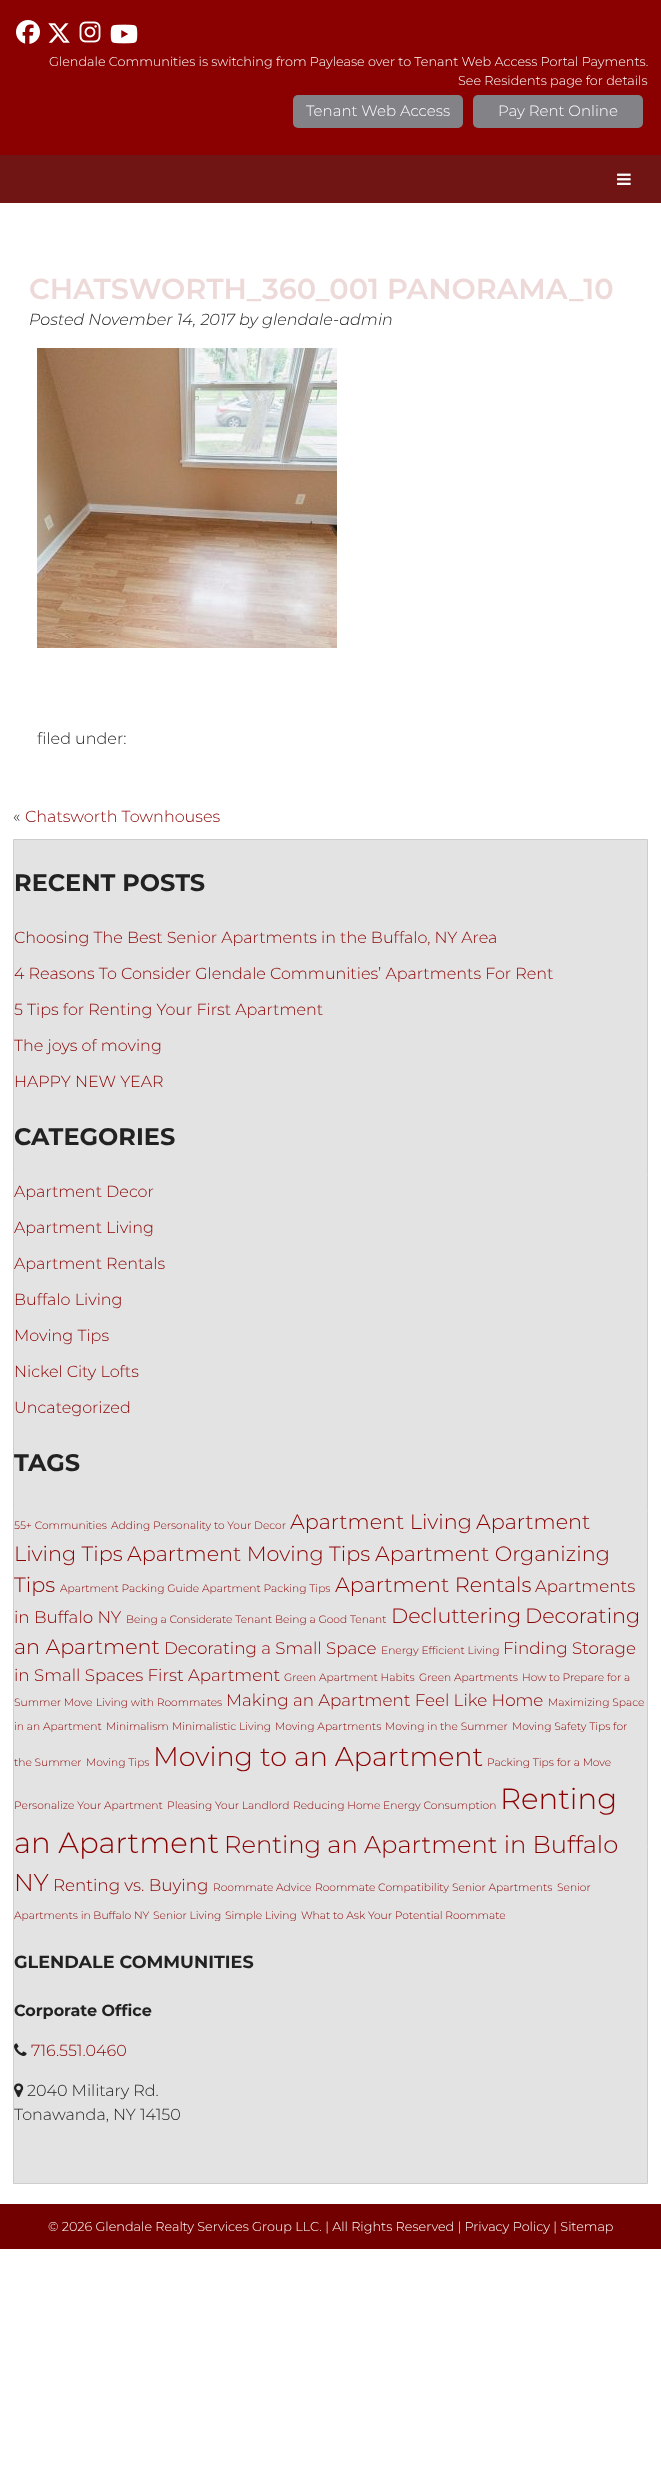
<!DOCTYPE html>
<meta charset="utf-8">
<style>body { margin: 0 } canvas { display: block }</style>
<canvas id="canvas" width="661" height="2485"></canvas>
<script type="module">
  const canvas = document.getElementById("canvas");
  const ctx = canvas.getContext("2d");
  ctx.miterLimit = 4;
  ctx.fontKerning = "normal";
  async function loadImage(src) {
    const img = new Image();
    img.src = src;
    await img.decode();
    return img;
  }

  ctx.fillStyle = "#ffffff";
  ctx.fillRect(0, 0, 661, 2485);
  ctx.fillStyle = "#8b0000";
  ctx.fillRect(0, 0, 661, 155);
  ctx.drawImage(await loadImage("img1.png"), 16, 20, 24, 24);
  ctx.drawImage(await loadImage("img2.png"), 48, 23, 22, 20);
  ctx.drawImage(await loadImage("img3.png"), 79, 21, 22, 22);
  ctx.drawImage(await loadImage("img4.png"), 110, 24, 28, 20);
  ctx.font = "300 12.8px Montserrat";
  ctx.fillStyle = "#ffffff";
  ctx.fillText("Glendale Communities is switching from Paylease over to Tenant Web Access Portal Payments.", 49, 66);
  ctx.fillText("See Residents page for details", 458, 85);
  ctx.fillStyle = "#838287";
  ctx.beginPath();
  ctx.roundRect(293, 95, 170, 33, 5);
  ctx.fill();
  ctx.font = "300 15px Montserrat";
  ctx.fillStyle = "#ffffff";
  ctx.fillText("Tenant Web Access", 306, 116);
  ctx.fillStyle = "#838287";
  ctx.beginPath();
  ctx.roundRect(473, 95, 170, 33, 5);
  ctx.fill();
  ctx.fillStyle = "#ffffff";
  ctx.fillText("Pay Rent Online", 498, 116);
  ctx.fillStyle = "#701414";
  ctx.fillRect(0, 155, 661, 48);
  ctx.drawImage(await loadImage("img5.png"), 617, 173, 14, 12);
  ctx.font = "600 28.8px Montserrat";
  ctx.fillStyle = "#eed9d9";
  ctx.fillText("CHATSWORTH_360_001 PANORAMA_10", 29, 299);
  ctx.font = "italic 300 16px Montserrat";
  ctx.fillStyle = "#222222";
  ctx.fillText("Posted November 14, 2017 by glendale-admin", 29, 325);
  ctx.drawImage(await loadImage("img6.png"), 37, 348, 300, 300);
  ctx.font = "300 16px Montserrat";
  ctx.fillText("filed under:", 37, 744);
  ctx.fillText("«", 13, 822);
  ctx.fillStyle = "#8b0000";
  ctx.fillText("Chatsworth Townhouses", 25, 822);
  ctx.fillStyle = "#e3e3e3";
  ctx.beginPath();
  ctx.rect(13.5, 839.5, 634, 1344);
  ctx.fill();
  ctx.strokeStyle = "#cdcdcd";
  ctx.stroke();
  ctx.font = "bold 24px Montserrat";
  ctx.fillStyle = "#222222";
  ctx.fillText("RECENT POSTS", 14, 891);
  ctx.font = "300 16px Montserrat";
  ctx.fillStyle = "#8b0000";
  ctx.fillText("Choosing The Best Senior Apartments in the Buffalo, NY Area", 14, 943);
  ctx.fillText("4 Reasons To Consider Glendale Communities’ Apartments For Rent", 14, 979);
  ctx.fillText("5 Tips for Renting Your First Apartment", 14, 1015);
  ctx.fillText("The joys of moving", 14, 1051);
  ctx.fillText("HAPPY NEW YEAR", 14, 1087);
  ctx.font = "bold 24px Montserrat";
  ctx.fillStyle = "#222222";
  ctx.fillText("CATEGORIES", 14, 1145);
  ctx.font = "300 16px Montserrat";
  ctx.fillStyle = "#8b0000";
  ctx.fillText("Apartment Decor", 14, 1197);
  ctx.fillText("Apartment Living", 14, 1233);
  ctx.fillText("Apartment Rentals", 14, 1269);
  ctx.fillText("Buffalo Living", 14, 1305);
  ctx.fillText("Moving Tips", 14, 1341);
  ctx.fillText("Nickel City Lofts", 14, 1377);
  ctx.fillText("Uncategorized", 14, 1413);
  ctx.font = "bold 24px Montserrat";
  ctx.fillStyle = "#222222";
  ctx.fillText("TAGS", 14, 1471);
  ctx.font = "300 10.7px Montserrat";
  ctx.fillStyle = "#8b0000";
  ctx.fillText("55+ Communities", 14, 1529);
  ctx.fillText("Adding Personality to Your Decor", 111, 1529);
  ctx.font = "300 20.8px Montserrat";
  ctx.fillText("Apartment Living", 290, 1529);
  ctx.fillText("Apartment", 476, 1529);
  ctx.fillText("Living Tips", 14, 1561);
  ctx.fillText("Apartment Moving Tips", 127, 1561);
  ctx.fillText("Apartment Organizing", 375, 1561);
  ctx.fillText("Tips", 14, 1592);
  ctx.font = "300 10.7px Montserrat";
  ctx.fillText("Apartment Packing Guide", 60, 1592);
  ctx.fillText("Apartment Packing Tips", 202, 1592);
  ctx.font = "300 20.8px Montserrat";
  ctx.fillText("Apartment Rentals", 335, 1592);
  ctx.font = "300 16.75px Montserrat";
  ctx.fillText("Apartments", 535, 1592);
  ctx.fillText("in Buffalo NY", 14, 1623);
  ctx.font = "300 10.7px Montserrat";
  ctx.fillText("Being a Considerate Tenant", 126, 1623);
  ctx.fillText("Being a Good Tenant", 275, 1623);
  ctx.font = "300 20.8px Montserrat";
  ctx.fillText("Decluttering", 391, 1623);
  ctx.fillText("Decorating", 525, 1623);
  ctx.fillText("an Apartment", 14, 1654);
  ctx.font = "300 16.75px Montserrat";
  ctx.fillText("Decorating a Small Space", 164, 1654);
  ctx.font = "300 10.7px Montserrat";
  ctx.fillText("Energy Efficient Living", 381, 1654);
  ctx.font = "300 16.75px Montserrat";
  ctx.fillText("Finding Storage", 503, 1654);
  ctx.fillText("in Small Spaces First Apartment", 14, 1681);
  ctx.font = "300 10.7px Montserrat";
  ctx.fillText("Green Apartment Habits", 284, 1681);
  ctx.fillText("Green Apartments", 419, 1681);
  ctx.fillText("How to Prepare for a", 522, 1681);
  ctx.fillText("Summer Move", 14, 1706);
  ctx.fillText("Living with Roommates", 96, 1706);
  ctx.font = "300 16.75px Montserrat";
  ctx.fillText("Making an Apartment Feel Like Home", 226, 1706);
  ctx.font = "300 10.7px Montserrat";
  ctx.fillText("Maximizing Space", 548, 1706);
  ctx.fillText("in an Apartment", 14, 1730);
  ctx.fillText("Minimalism", 106, 1730);
  ctx.fillText("Minimalistic Living", 172, 1730);
  ctx.fillText("Moving Apartments", 275, 1730);
  ctx.fillText("Moving in the Summer", 385, 1730);
  ctx.fillText("Moving Safety Tips for", 512, 1730);
  ctx.fillText("the Summer", 14, 1766);
  ctx.fillText("Moving Tips", 86, 1766);
  ctx.font = "300 27px Montserrat";
  ctx.fillText("Moving to an Apartment", 153, 1766);
  ctx.font = "300 10.7px Montserrat";
  ctx.fillText("Packing Tips for a Move", 487, 1766);
  ctx.fillText("Personalize Your Apartment", 14, 1809);
  ctx.fillText("Pleasing Your Landlord", 167, 1809);
  ctx.fillText("Reducing Home Energy Consumption", 293, 1809);
  ctx.font = "300 29.25px Montserrat";
  ctx.fillText("Renting", 500, 1809);
  ctx.fillText("an Apartment", 14, 1853);
  ctx.font = "300 24.25px Montserrat";
  ctx.fillText("Renting an Apartment in Buffalo", 224, 1853);
  ctx.fillText("NY", 14, 1891);
  ctx.font = "300 16.75px Montserrat";
  ctx.fillText("Renting vs. Buying", 53, 1891);
  ctx.font = "300 10.7px Montserrat";
  ctx.fillText("Roommate Advice", 213, 1891);
  ctx.fillText("Roommate Compatibility", 315, 1891);
  ctx.fillText("Senior Apartments", 452, 1891);
  ctx.fillText("Senior", 557, 1891);
  ctx.fillText("Apartments in Buffalo NY", 14, 1919);
  ctx.fillText("Senior Living", 153, 1919);
  ctx.fillText("Simple Living", 225, 1919);
  ctx.fillText("What to Ask Your Potential Roommate", 301, 1919);
  ctx.font = "bold 17.6px Montserrat";
  ctx.fillStyle = "#222222";
  ctx.fillText("GLENDALE COMMUNITIES", 14, 1968);
  ctx.font = "bold 16px Montserrat";
  ctx.fillText("Corporate Office", 14, 2016);
  ctx.drawImage(await loadImage("img7.png"), 14, 2043, 13, 13);
  ctx.font = "300 16px Montserrat";
  ctx.fillStyle = "#8b0000";
  ctx.fillText("716.551.0460", 31, 2056);
  ctx.drawImage(await loadImage("img8.png"), 14, 2083, 10, 15);
  ctx.fillStyle = "#222222";
  ctx.fillText("2040 Military Rd.", 27, 2096);
  ctx.fillText("Tonawanda, NY 14150", 14, 2120);
  ctx.fillStyle = "#720000";
  ctx.fillRect(0, 2204, 661, 45);
  ctx.font = "300 12.8px Montserrat";
  ctx.fillStyle = "#ffffff";
  ctx.fillText("© 2026 Glendale Realty Services Group LLC. | All Rights Reserved | Privacy Policy | Sitemap", 48, 2231);
</script>
